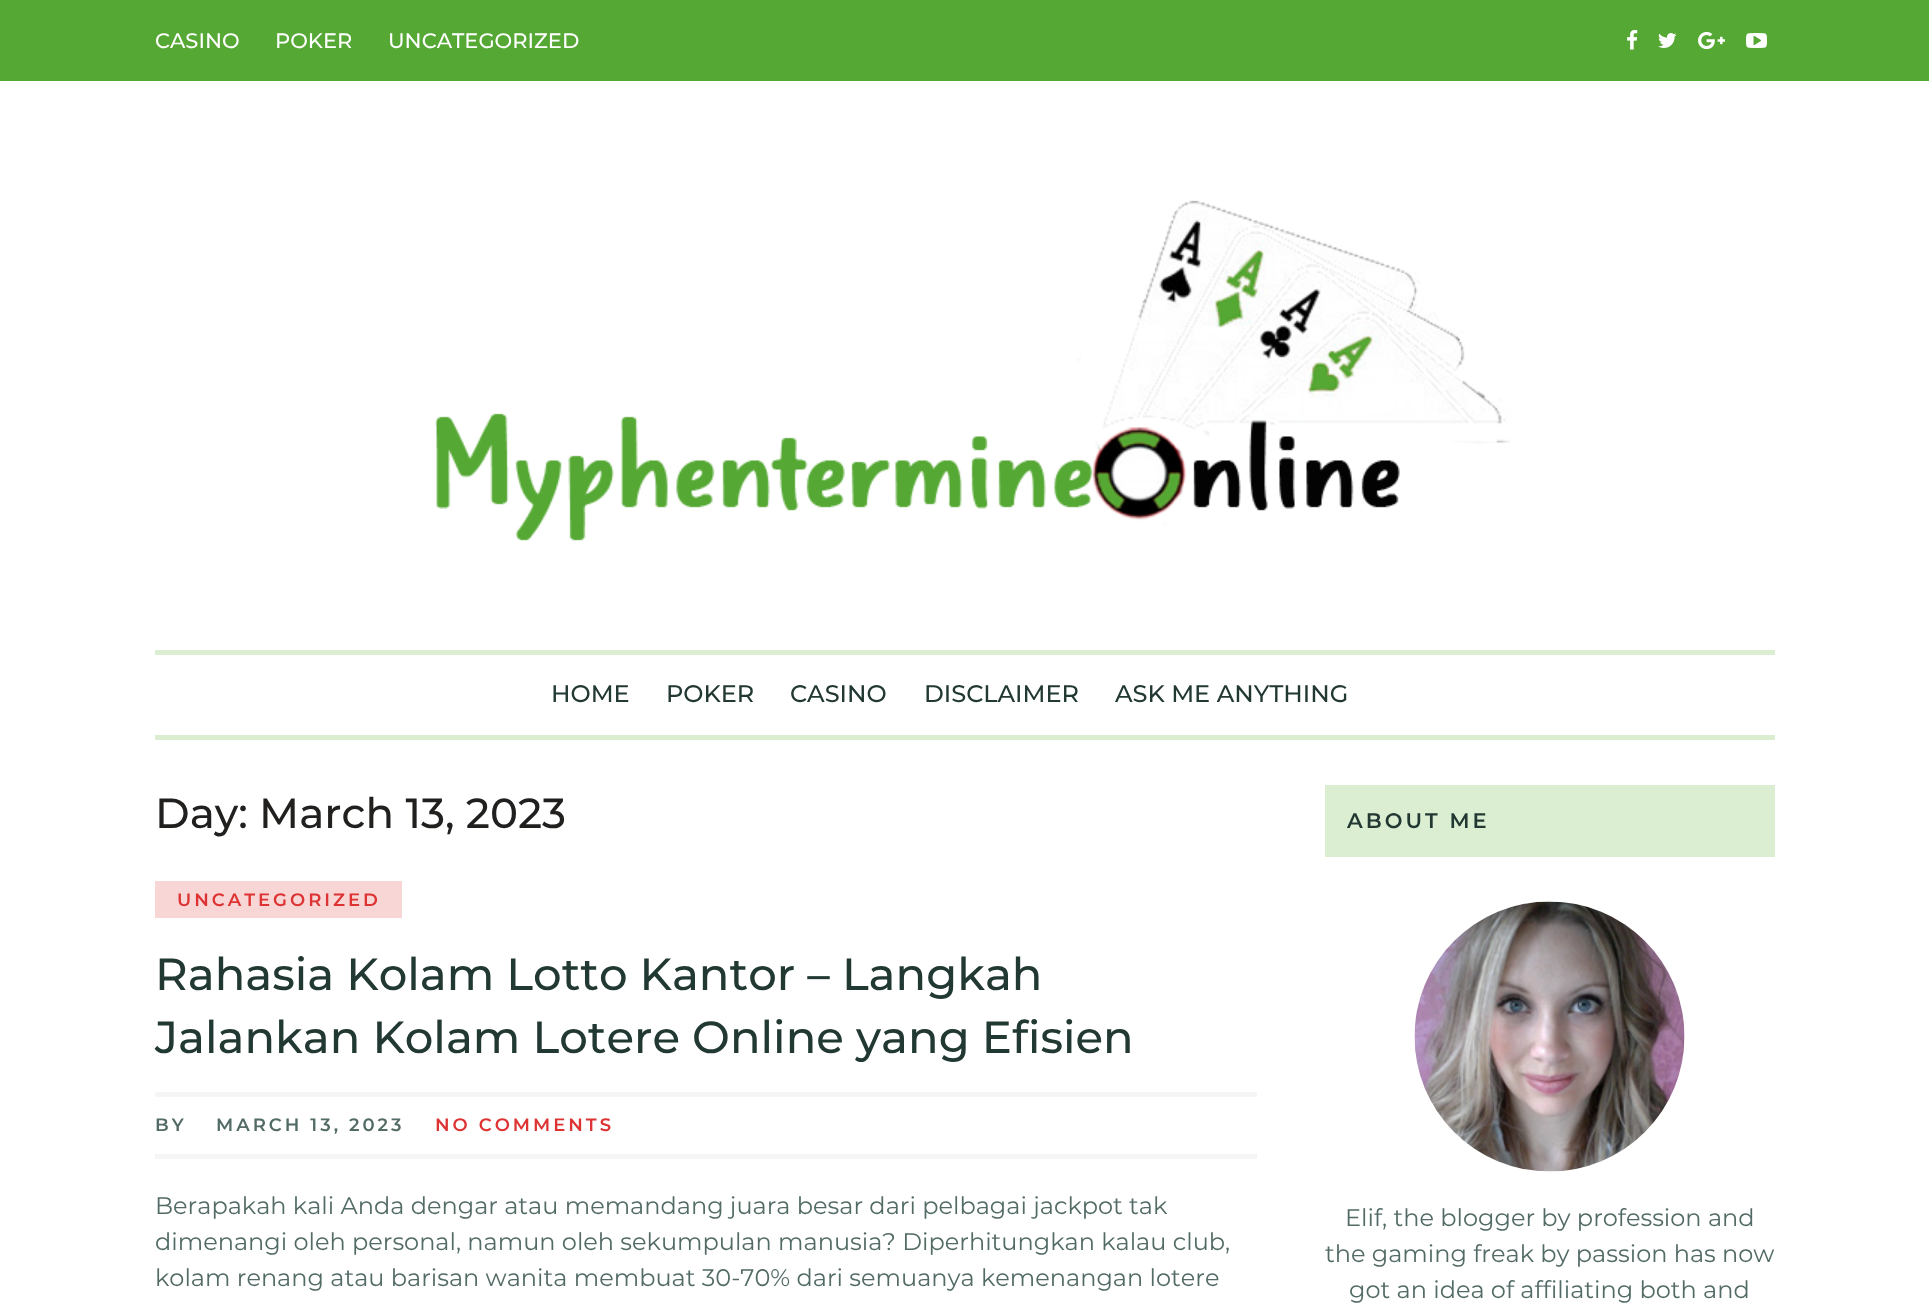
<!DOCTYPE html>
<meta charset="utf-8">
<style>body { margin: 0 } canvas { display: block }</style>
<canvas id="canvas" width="1929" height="1313"></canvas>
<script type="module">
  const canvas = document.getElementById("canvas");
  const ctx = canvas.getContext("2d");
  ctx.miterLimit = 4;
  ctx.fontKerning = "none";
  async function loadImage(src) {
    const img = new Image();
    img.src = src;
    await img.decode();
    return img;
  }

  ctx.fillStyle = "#ffffff";
  ctx.fillRect(0, 0, 1929, 1313);
  ctx.fillStyle = "#55a834";
  ctx.fillRect(0, 0, 1929, 81);
  ctx.font = "500 21px Montserrat";
  ctx.fillStyle = "#ffffff";
  ctx.fillText("CASINO", 155, 48);
  ctx.fillText("POKER", 275, 48);
  ctx.fillText("UNCATEGORIZED", 388, 48);
  ctx.drawImage(await loadImage("img1.png"), 1627, 30, 11, 20);
  ctx.drawImage(await loadImage("img2.png"), 1658, 33, 19, 15);
  ctx.drawImage(await loadImage("img3.png"), 1698, 31, 27, 19);
  ctx.drawImage(await loadImage("img4.png"), 1746, 33, 21, 15);
  ctx.drawImage(await loadImage("img5.png"), 435, 200, 1076, 341);
  ctx.fillStyle = "#dceed2";
  ctx.fillRect(155, 650, 1620, 5);
  ctx.fillRect(155, 735, 1620, 5);
  ctx.font = "500 24px Montserrat";
  ctx.fillStyle = "#213833";
  ctx.fillText("HOME", 551, 702);
  ctx.fillText("POKER", 666, 702);
  ctx.fillText("CASINO", 790, 702);
  ctx.fillText("DISCLAIMER", 924, 702);
  ctx.fillText("ASK ME ANYTHING", 1115, 702);
  ctx.font = "500 42px Montserrat";
  ctx.fillStyle = "#21201f";
  ctx.fillText("Day: March 13, 2023", 155, 828);
  ctx.fillStyle = "#f8d6d6";
  ctx.fillRect(155, 881, 247, 37);
  ctx.letterSpacing = "3px";
  ctx.font = "600 18px Montserrat";
  ctx.fillStyle = "#dd3333";
  ctx.fillText("UNCATEGORIZED", 177, 906);
  ctx.letterSpacing = "0px";
  ctx.font = "500 45px Montserrat";
  ctx.fillStyle = "#213833";
  ctx.fillText("Rahasia Kolam Lotto Kantor – Langkah", 155, 990);
  ctx.fillText("Jalankan Kolam Lotere Online yang Efisien", 155, 1053);
  ctx.fillStyle = "#f5f5f5";
  ctx.fillRect(155, 1092, 1102, 5);
  ctx.fillRect(155, 1154, 1102, 5);
  ctx.letterSpacing = "3px";
  ctx.font = "600 18px Montserrat";
  ctx.fillStyle = "#536b66";
  ctx.fillText("BY", 155, 1131);
  ctx.fillText("MARCH 13, 2023", 216, 1131);
  ctx.fillStyle = "#dd3333";
  ctx.fillText("NO COMMENTS", 435, 1131);
  ctx.letterSpacing = "0px";
  ctx.font = "24px Montserrat";
  ctx.fillStyle = "#536b66";
  ctx.fillText("Berapakah kali Anda dengar atau memandang juara besar dari pelbagai jackpot tak", 155, 1214);
  ctx.fillText("dimenangi oleh personal, namun oleh sekumpulan manusia? Diperhitungkan kalau club,", 155, 1250);
  ctx.fillText("kolam renang atau barisan wanita membuat 30-70% dari semuanya kemenangan lotere", 155, 1286);
  ctx.fillStyle = "#dceed2";
  ctx.fillRect(1325, 785, 450, 72);
  ctx.letterSpacing = "3px";
  ctx.font = "600 21px Montserrat";
  ctx.fillStyle = "#213833";
  ctx.fillText("ABOUT ME", 1347, 828);
  ctx.drawImage(await loadImage("img6.png"), 1414, 901, 271, 271);
  ctx.letterSpacing = "0px";
  ctx.font = "24px Montserrat";
  ctx.fillStyle = "#536b66";
  ctx.fillText("Elif, the blogger by profession and", 1345, 1226);
  ctx.fillText("the gaming freak by passion has now", 1325, 1262);
  ctx.fillText("got an idea of affiliating both and", 1349, 1298);
</script>
